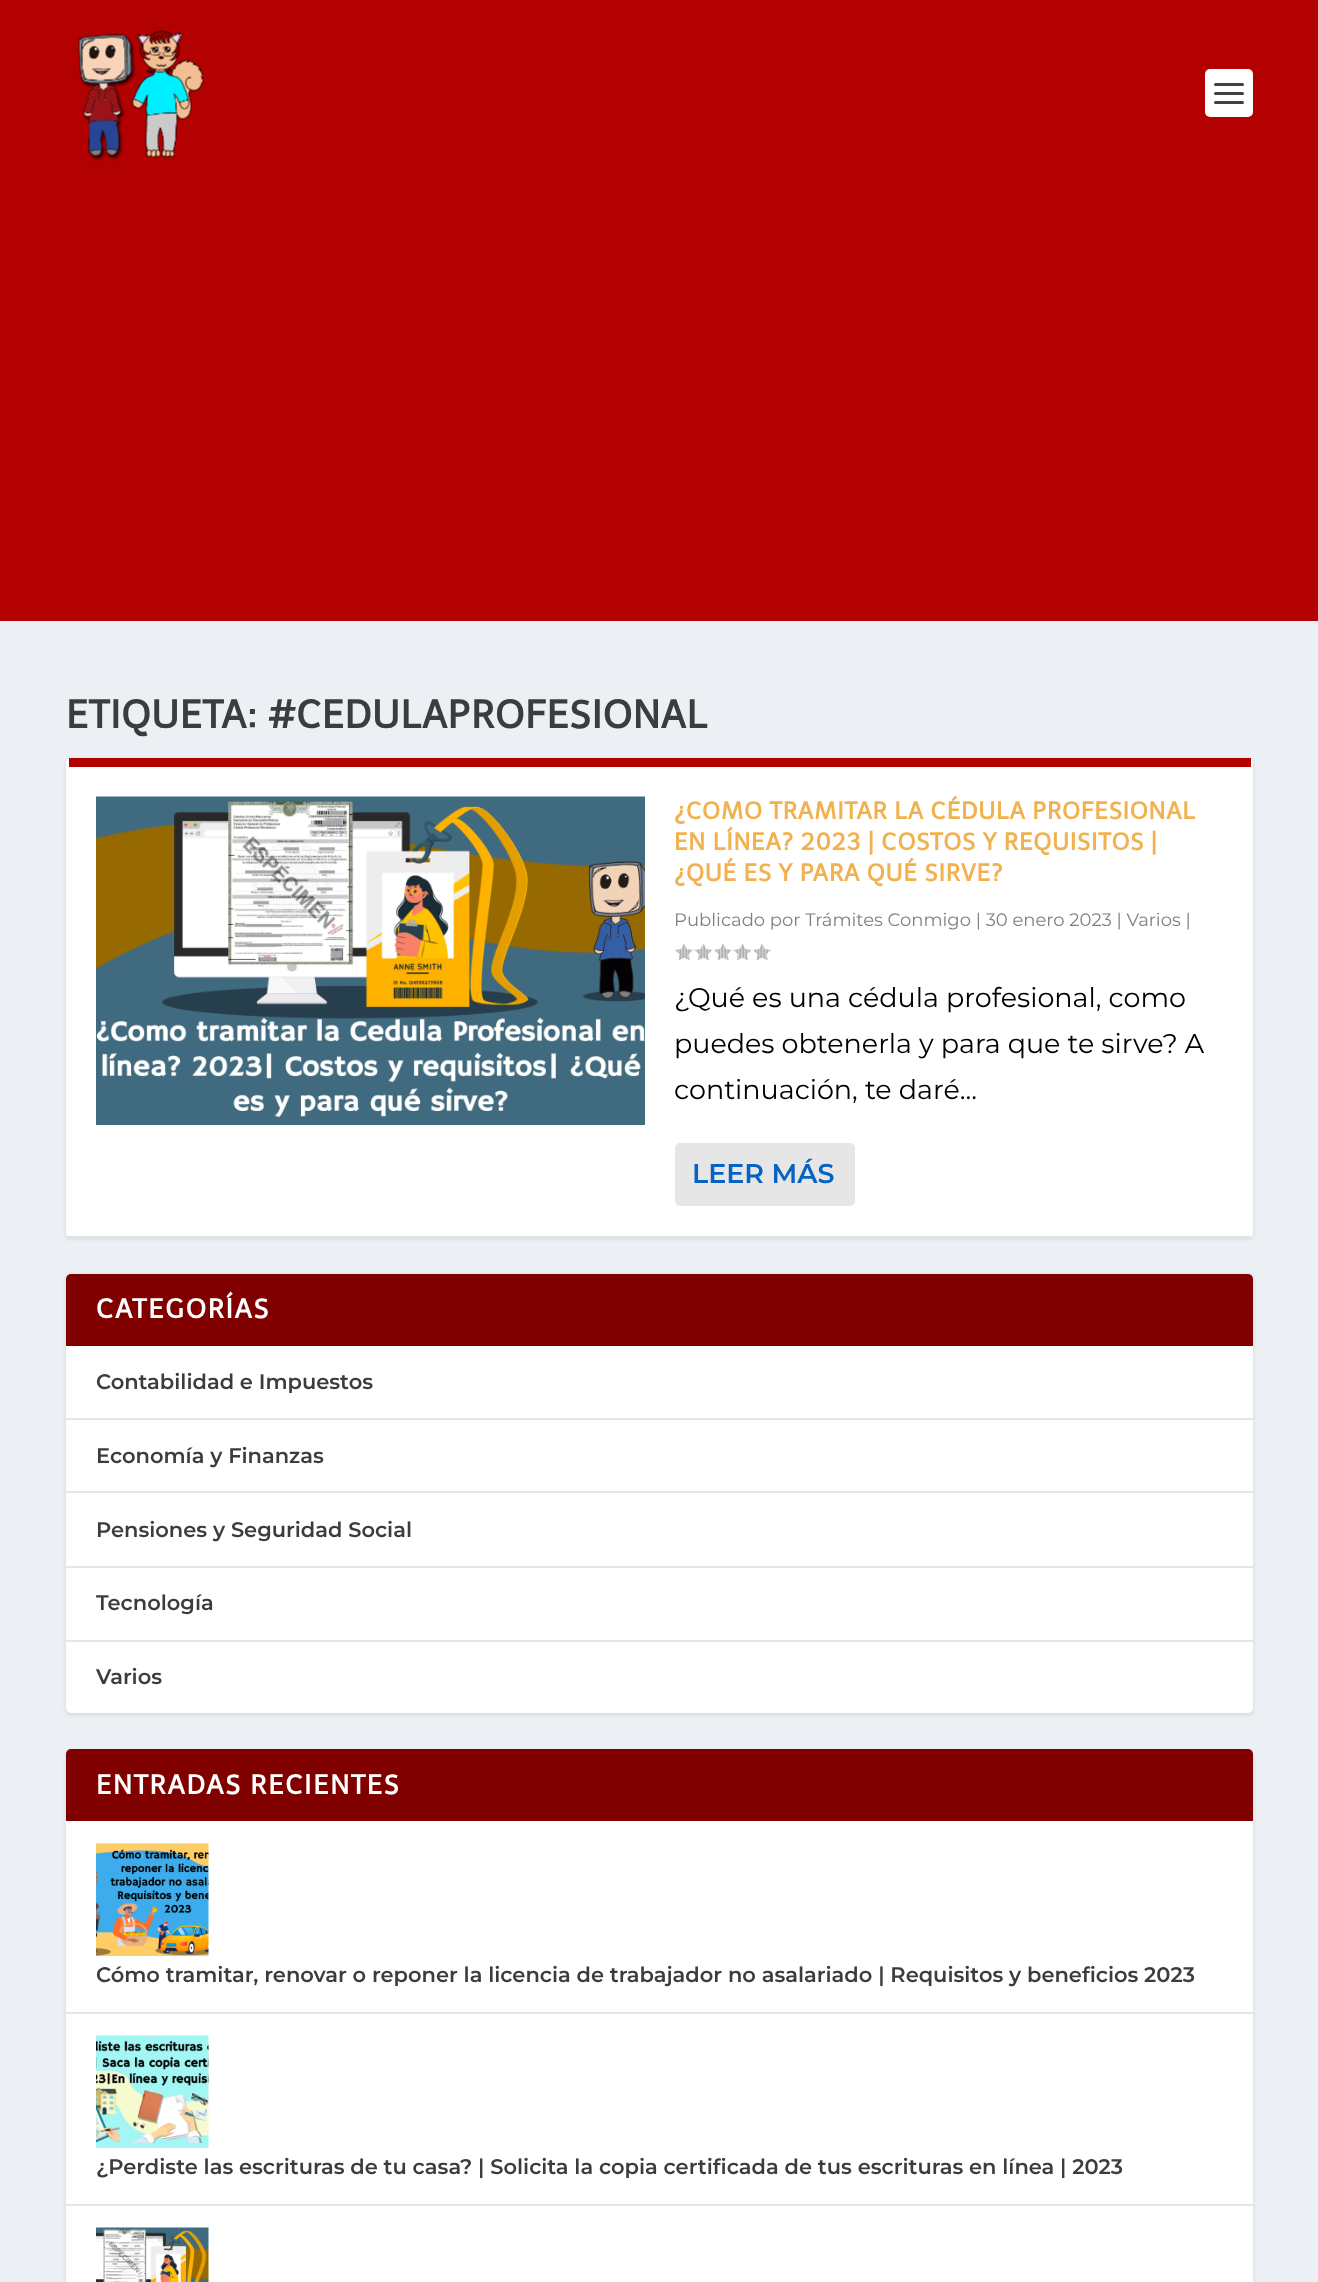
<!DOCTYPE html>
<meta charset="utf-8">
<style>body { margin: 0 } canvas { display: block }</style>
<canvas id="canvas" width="1318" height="2282"></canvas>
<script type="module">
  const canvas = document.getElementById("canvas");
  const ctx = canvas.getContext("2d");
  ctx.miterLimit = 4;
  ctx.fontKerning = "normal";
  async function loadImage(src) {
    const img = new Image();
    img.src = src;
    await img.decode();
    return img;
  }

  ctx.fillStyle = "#ecf0f5";
  ctx.fillRect(0, 0, 1318, 2282);
  ctx.fillStyle = "#b30000";
  ctx.fillRect(0, 0, 1318, 621);
  ctx.drawImage(await loadImage("img1.png"), 78, 30, 126, 131);
  ctx.fillStyle = "#ffffff";
  ctx.beginPath();
  ctx.roundRect(1205, 69, 48, 48, 5);
  ctx.fill();
  ctx.fillStyle = "#404040";
  ctx.beginPath();
  ctx.roundRect(1214, 83, 30, 3, 1.5);
  ctx.fill();
  ctx.beginPath();
  ctx.roundRect(1214, 92, 30, 3, 1.5);
  ctx.fill();
  ctx.beginPath();
  ctx.roundRect(1214, 101, 30, 3, 1.5);
  ctx.fill();
  ctx.letterSpacing = "0.75px";
  ctx.font = "bold 39px Telex";
  ctx.fillStyle = "#3b3c3d";
  ctx.fillText("ETIQUETA: #CEDULAPROFESIONAL", 66, 728);
  ctx.fillStyle = "rgba(0, 0, 0, 0.1)";
  ctx.filter = "blur(2px)";
  ctx.beginPath();
  ctx.roundRect(66, 759, 1187, 480, 5);
  ctx.fill();
  ctx.filter = "none";
  ctx.fillStyle = "#ffffff";
  ctx.beginPath();
  ctx.roundRect(66, 758, 1187, 480, 5);
  ctx.fill();
  ctx.fillStyle = "#b30000";
  ctx.fillRect(69, 758, 1182, 9);
  ctx.fillStyle = "rgba(0, 0, 0, 0.1)";
  ctx.beginPath();
  ctx.moveTo(1251, 1236);
  ctx.bezierCurveTo(1251, 1237, 1249, 1238, 1248, 1238);
  ctx.lineTo(70, 1238);
  ctx.bezierCurveTo(69, 1238, 68, 1237, 67, 1236);
  ctx.closePath();
  ctx.fill();
  ctx.drawImage(await loadImage("img2.png"), 96, 796, 549, 329);
  ctx.font = "bold 24px Telex";
  ctx.fillStyle = "#f2b14f";
  ctx.fillText("¿COMO TRAMITAR LA CÉDULA PROFESIONAL", 674, 819);
  ctx.fillText("EN LÍNEA? 2023 | COSTOS Y REQUISITOS |", 674, 850);
  ctx.fillText("¿QUÉ ES Y PARA QUÉ SIRVE?", 674, 881);
  ctx.letterSpacing = "0px";
  ctx.font = "18px Montserrat";
  ctx.fillStyle = "#808080";
  ctx.fillText("Publicado por Trámites Conmigo | 30 enero 2023 | Varios |", 674, 926);
  ctx.drawImage(await loadImage("img3.png"), 675, 943, 18, 18);
  ctx.drawImage(await loadImage("img4.png"), 694, 943, 19, 18);
  ctx.drawImage(await loadImage("img3.png"), 714, 943, 18, 18);
  ctx.drawImage(await loadImage("img4.png"), 733, 943, 19, 18);
  ctx.drawImage(await loadImage("img3.png"), 753, 943, 18, 18);
  ctx.font = "27px Montserrat";
  ctx.fillStyle = "#000000";
  ctx.fillText("¿Qué es una cédula profesional, como", 674, 1007);
  ctx.fillText("puedes obtenerla y para que te sirve? A", 674, 1053);
  ctx.fillText("continuación, te daré...", 674, 1099);
  ctx.fillStyle = "#e6e6e6";
  ctx.beginPath();
  ctx.roundRect(675, 1143, 180, 63, 5);
  ctx.fill();
  ctx.font = "600 27px Montserrat";
  ctx.fillStyle = "#0563c1";
  ctx.fillText("LEER MÁS", 692, 1183);
  ctx.fillStyle = "rgba(0, 0, 0, 0.1)";
  ctx.filter = "blur(2px)";
  ctx.beginPath();
  ctx.roundRect(66, 1275, 1187, 440, 5);
  ctx.fill();
  ctx.filter = "none";
  ctx.fillStyle = "#ffffff";
  ctx.beginPath();
  ctx.roundRect(66, 1274, 1187, 439, 5);
  ctx.fill();
  ctx.fillStyle = "#800000";
  ctx.beginPath();
  ctx.roundRect(66, 1274, 1187, 72, [5, 5, 0, 0]);
  ctx.fill();
  ctx.letterSpacing = "1.75px";
  ctx.font = "bold 27px Telex";
  ctx.fillStyle = "#ffffff";
  ctx.fillText("CATEGORÍAS", 96, 1318);
  ctx.fillStyle = "#e6e6e6";
  ctx.fillRect(66, 1418, 1187, 2);
  ctx.letterSpacing = "0px";
  ctx.font = "600 21px Montserrat";
  ctx.fillStyle = "#3b3c3d";
  ctx.fillText("Contabilidad e Impuestos", 96, 1389);
  ctx.fillStyle = "#e6e6e6";
  ctx.fillRect(66, 1491, 1187, 2);
  ctx.fillStyle = "#3b3c3d";
  ctx.fillText("Economía y Finanzas", 96, 1463);
  ctx.fillStyle = "#e6e6e6";
  ctx.fillRect(66, 1566, 1187, 2);
  ctx.fillStyle = "#3b3c3d";
  ctx.fillText("Pensiones y Seguridad Social", 96, 1537);
  ctx.fillStyle = "#e6e6e6";
  ctx.fillRect(66, 1640, 1187, 2);
  ctx.fillStyle = "#3b3c3d";
  ctx.fillText("Tecnología", 96, 1610);
  ctx.fillText("Varios", 96, 1684);
  ctx.fillStyle = "rgba(0, 0, 0, 0.1)";
  ctx.filter = "blur(2px)";
  ctx.beginPath();
  ctx.roundRect(66, 1751, 1187, 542, 5);
  ctx.fill();
  ctx.filter = "none";
  ctx.fillStyle = "#ffffff";
  ctx.beginPath();
  ctx.roundRect(66, 1749, 1187, 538, 5);
  ctx.fill();
  ctx.fillStyle = "#800000";
  ctx.beginPath();
  ctx.roundRect(66, 1749, 1187, 72, [5, 5, 0, 0]);
  ctx.fill();
  ctx.letterSpacing = "1.75px";
  ctx.font = "bold 27px Telex";
  ctx.fillStyle = "#ffffff";
  ctx.fillText("ENTRADAS RECIENTES", 96, 1794);
  ctx.fillStyle = "#e6e6e6";
  ctx.fillRect(66, 2012, 1187, 2);
  ctx.drawImage(await loadImage("img5.png"), 96, 1843, 113, 113);
  ctx.letterSpacing = "0px";
  ctx.font = "600 21px Montserrat";
  ctx.fillStyle = "#3b3c3d";
  ctx.fillText("Cómo tramitar, renovar o reponer la licencia de trabajador no asalariado | Requisitos y beneficios 2023", 96, 1982);
  ctx.fillStyle = "#e6e6e6";
  ctx.fillRect(66, 2204, 1187, 2);
  ctx.drawImage(await loadImage("img6.png"), 96, 2035, 113, 113);
  ctx.fillStyle = "#3b3c3d";
  ctx.fillText("¿Perdiste las escrituras de tu casa? | Solicita la copia certificada de tus escrituras en línea | 2023", 96, 2174);
  ctx.drawImage(await loadImage("img7.png"), 96, 2227, 113, 55);
</script>
